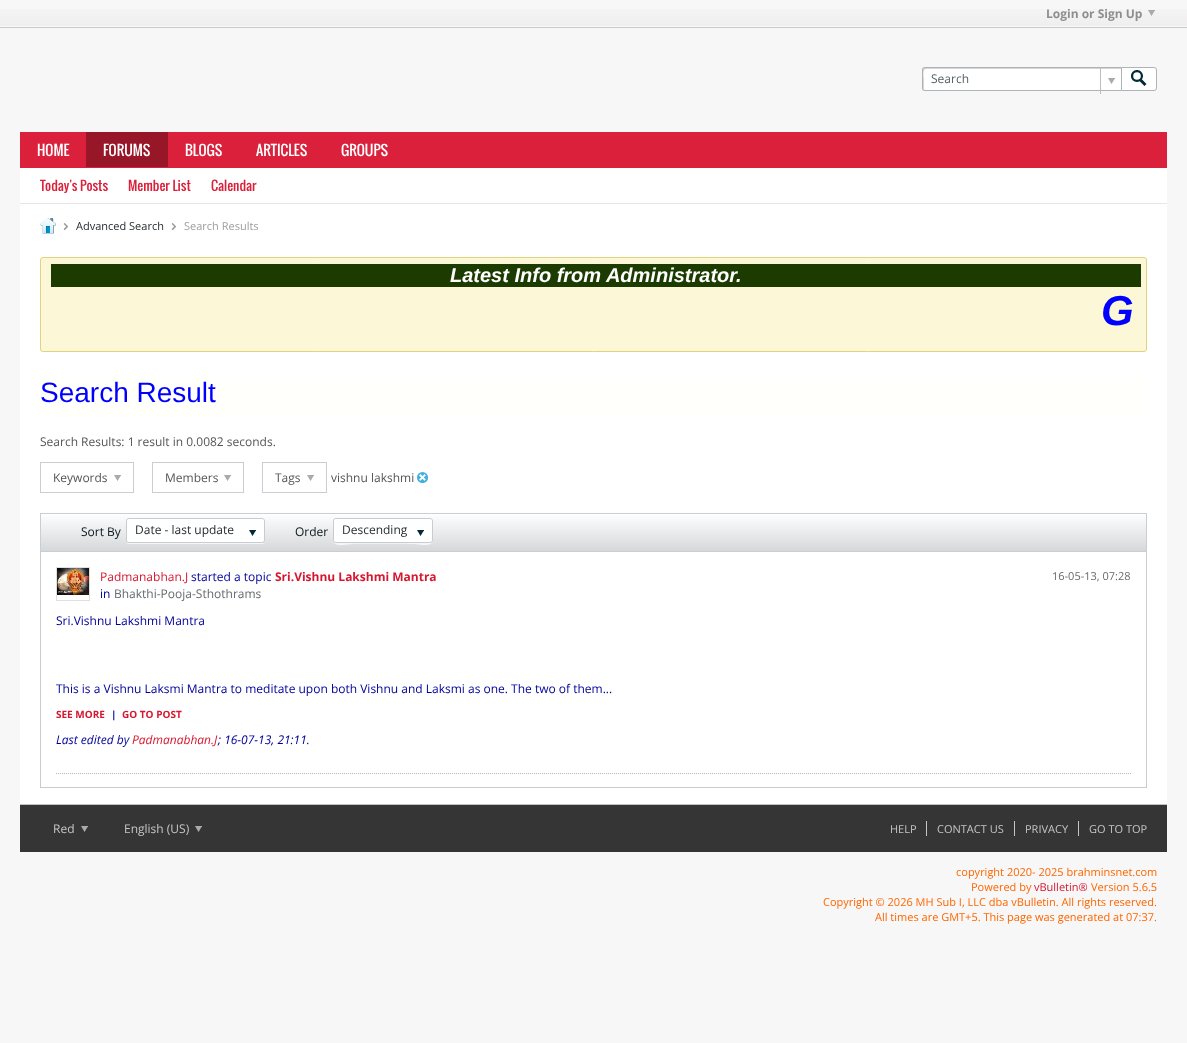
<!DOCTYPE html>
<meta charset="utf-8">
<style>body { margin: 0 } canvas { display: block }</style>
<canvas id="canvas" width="1187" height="1043"></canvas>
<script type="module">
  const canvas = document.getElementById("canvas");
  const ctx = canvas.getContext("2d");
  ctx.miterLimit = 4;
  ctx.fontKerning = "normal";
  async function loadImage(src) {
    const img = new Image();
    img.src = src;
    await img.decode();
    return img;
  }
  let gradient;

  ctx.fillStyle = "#f7f7f7";
  ctx.fillRect(0, 0, 1187, 1043);
  gradient = ctx.createLinearGradient(594, 0, 594, 28);
  gradient.addColorStop(0, "#f8f8f8");
  gradient.addColorStop(1, "#efedee");
  ctx.fillStyle = gradient;
  ctx.fillRect(0, 9, 1187, 17);
  ctx.font = "bold 12px Open Sans";
  ctx.fillStyle = "#8e8e8e";
  ctx.fillText("Login or Sign Up", 1046, 18);
  ctx.drawImage(await loadImage("img1.png"), 1148, 10, 7, 6);
  ctx.fillStyle = "#fafafa";
  ctx.fillRect(0, 26, 1187, 1);
  ctx.fillStyle = "#c7c8c9";
  ctx.fillRect(0, 27, 1187, 1);
  ctx.fillStyle = "#ffffff";
  ctx.beginPath();
  ctx.roundRect(922, 67, 199, 24, [3, 0, 0, 3]);
  ctx.fill();
  ctx.fillStyle = "#d5d5d5";
  ctx.beginPath();
  ctx.moveTo(926, 69);
  ctx.lineTo(1121, 69);
  ctx.lineTo(1121, 68);
  ctx.lineTo(925, 68);
  ctx.bezierCurveTo(924, 68, 923, 69, 923, 70);
  ctx.lineTo(923, 88);
  ctx.bezierCurveTo(923, 89, 924, 90, 924, 90);
  ctx.lineTo(924, 80);
  ctx.bezierCurveTo(924, 78, 922, 69, 926, 69);
  ctx.closePath();
  ctx.fill();
  ctx.fillStyle = "#aeb3b6";
  ctx.beginPath();
  ctx.moveTo(925, 67);
  ctx.lineTo(1121, 67);
  ctx.lineTo(1121, 91);
  ctx.lineTo(925, 91);
  ctx.bezierCurveTo(923, 91, 922, 90, 922, 88);
  ctx.lineTo(922, 70);
  ctx.bezierCurveTo(922, 68, 923, 67, 925, 67);
  ctx.closePath();
  ctx.moveTo(925, 68);
  ctx.lineTo(1121, 68);
  ctx.lineTo(1121, 90);
  ctx.lineTo(925, 90);
  ctx.bezierCurveTo(924, 90, 923, 89, 923, 88);
  ctx.lineTo(923, 70);
  ctx.bezierCurveTo(923, 69, 924, 68, 925, 68);
  ctx.closePath();
  ctx.fill("evenodd");
  ctx.font = "12px Open Sans";
  ctx.fillStyle = "#556065";
  ctx.fillText("Search", 931, 83);
  ctx.fillStyle = "#bdbdbd";
  ctx.fillRect(1100, 67, 1, 27);
  ctx.drawImage(await loadImage("img2.png"), 1108, 78, 7, 6);
  ctx.fillStyle = "#ffffff";
  ctx.beginPath();
  ctx.roundRect(1121.5, 67.5, 35, 23, [0, 2.5, 2.5, 0]);
  ctx.fill();
  ctx.strokeStyle = "#aeb3b6";
  ctx.stroke();
  ctx.drawImage(await loadImage("img3.png"), 1131, 70, 16, 16);
  ctx.fillStyle = "#db203b";
  ctx.fillRect(20, 132, 1147, 36);
  ctx.font = "14px Oswald";
  ctx.fillStyle = "#ffffff";
  ctx.fillText("HOME", 37, 156);
  ctx.fillStyle = "#971628";
  ctx.beginPath();
  ctx.roundRect(86, 132, 82, 35, [1, 1, 0, 0]);
  ctx.fill();
  ctx.fillStyle = "#ffffff";
  ctx.fillText("FORUMS", 103, 156);
  ctx.fillText("BLOGS", 185, 156);
  ctx.fillText("ARTICLES", 256, 156);
  ctx.fillText("GROUPS", 341, 156);
  ctx.fillRect(20, 168, 1147, 35);
  ctx.fillStyle = "#e7e7e7";
  ctx.fillRect(20, 203, 1147, 1);
  ctx.font = "13px Oswald";
  ctx.fillStyle = "#db203b";
  ctx.fillText("Today's Posts", 40, 191);
  ctx.fillText("Member List", 128, 191);
  ctx.fillText("Calendar", 211, 191);
  ctx.fillStyle = "#ffffff";
  ctx.fillRect(20, 204, 1147, 600);
  ctx.drawImage(await loadImage("img4.png"), 40, 218, 16, 16);
  ctx.drawImage(await loadImage("img5.png"), 63, 223, 5, 7);
  ctx.font = "11px Open Sans";
  ctx.fillStyle = "#252c2f";
  ctx.fillText("Advanced Search", 76, 230);
  ctx.drawImage(await loadImage("img5.png"), 171, 223, 5, 7);
  ctx.fillStyle = "#9e9d9d";
  ctx.fillText("Search Results", 184, 230);
  ctx.fillStyle = "#fcf7d7";
  ctx.beginPath();
  ctx.roundRect(40.5, 257.5, 1106, 94, 2.5);
  ctx.fill();
  ctx.strokeStyle = "#e1d47e";
  ctx.stroke();
  ctx.fillStyle = "#1c3b00";
  ctx.fillRect(51, 264, 1090, 23);
  ctx.font = "italic bold 20px Liberation Sans";
  ctx.fillStyle = "#ffffff";
  ctx.fillText("Latest Info from Administrator.", 450, 282);
  ctx.font = "italic bold 42px Liberation Sans";
  ctx.fillStyle = "#0000ff";
  ctx.fillText("G", 1101, 325);
  ctx.fillStyle = "#fffffc";
  ctx.beginPath();
  ctx.roundRect(40, 377, 1107, 40, 3);
  ctx.fill();
  ctx.font = "28px Liberation Sans";
  ctx.fillStyle = "#0000ff";
  ctx.fillText("Search Result", 40, 402);
  ctx.font = "12px Open Sans";
  ctx.fillStyle = "#555555";
  ctx.fillText("Search Results: 1 result in 0.0082 seconds.", 40, 446);
  ctx.strokeStyle = "#c9ced2";
  ctx.strokeRect(40.5, 462.5, 93, 30);
  ctx.fillText("Keywords", 53, 482);
  ctx.drawImage(await loadImage("img2.png"), 114, 475, 7, 6);
  ctx.strokeRect(152.5, 462.5, 91, 30);
  ctx.fillText("Members", 165, 482);
  ctx.drawImage(await loadImage("img2.png"), 224, 475, 7, 6);
  ctx.strokeRect(262.5, 462.5, 64, 30);
  ctx.fillText("Tags", 275, 482);
  ctx.drawImage(await loadImage("img2.png"), 307, 475, 7, 6);
  ctx.fillText("vishnu lakshmi", 331, 482);
  ctx.drawImage(await loadImage("img6.png"), 417, 472, 11, 11);
  gradient = ctx.createLinearGradient(594, 514, 594, 551);
  gradient.addColorStop(0, "#fefeff");
  gradient.addColorStop(1, "#d5d8da");
  ctx.fillStyle = gradient;
  ctx.fillRect(41, 515, 1105, 36);
  ctx.strokeStyle = "#c8ccce";
  ctx.strokeRect(40.5, 551.5, 1106, 236);
  ctx.strokeStyle = "#c9ced2";
  ctx.strokeRect(40.5, 513.5, 1106, 38);
  ctx.fillStyle = "#09161b";
  ctx.fillText("Sort By", 81, 536);
  ctx.fillStyle = "#f7f7f8";
  ctx.beginPath();
  ctx.moveTo(126, 540);
  ctx.bezierCurveTo(126, 542, 127, 544, 129, 544);
  ctx.lineTo(262, 544);
  ctx.bezierCurveTo(264, 544, 265, 542, 265, 540);
  ctx.bezierCurveTo(265, 542, 264, 543, 262, 543);
  ctx.lineTo(129, 543);
  ctx.bezierCurveTo(127, 543, 126, 542, 126, 540);
  ctx.closePath();
  ctx.fill();
  ctx.fillStyle = "#ffffff";
  ctx.beginPath();
  ctx.roundRect(126.5, 518.5, 138, 24, 2.5);
  ctx.fill();
  ctx.strokeStyle = "#c8ccce";
  ctx.stroke();
  ctx.beginPath();
  ctx.roundRect(127, 519, 137, 23, 3);
  ctx.fill();
  ctx.fillStyle = "#252c2f";
  ctx.fillText("Date - last update", 135, 534);
  ctx.drawImage(await loadImage("img7.png"), 249, 530, 7, 6);
  ctx.fillStyle = "#09161b";
  ctx.fillText("Order", 295, 536);
  ctx.fillStyle = "#f6f7f8";
  ctx.beginPath();
  ctx.moveTo(333, 540);
  ctx.bezierCurveTo(333, 548, 349, 544, 352, 544);
  ctx.lineTo(414, 544);
  ctx.bezierCurveTo(417, 544, 433, 548, 433, 540);
  ctx.lineTo(432, 542);
  ctx.bezierCurveTo(430, 544, 346, 543, 336, 543);
  ctx.lineTo(334, 542);
  ctx.closePath();
  ctx.fill();
  ctx.fillStyle = "#ffffff";
  ctx.beginPath();
  ctx.roundRect(333.5, 518.5, 99, 24, 2.5);
  ctx.fill();
  ctx.stroke();
  ctx.beginPath();
  ctx.roundRect(334, 519, 98, 23, 3);
  ctx.fill();
  ctx.fillStyle = "#252c2f";
  ctx.fillText("Descending", 342, 534);
  ctx.drawImage(await loadImage("img8.png"), 417, 530, 7, 6);
  ctx.strokeStyle = "#dfdfdf";
  ctx.strokeRect(56.5, 567.5, 33, 33);
  ctx.drawImage(await loadImage("img9.png"), 57, 568, 32, 27);
  ctx.fillStyle = "#d71730";
  ctx.fillText("Padmanabhan.J", 100, 581);
  ctx.fillStyle = "#000099";
  ctx.fillText("started a topic", 191, 581);
  ctx.font = "bold 12px Open Sans";
  ctx.fillStyle = "#d71730";
  ctx.fillText("Sri.Vishnu Lakshmi Mantra", 275, 581);
  ctx.font = "12px Open Sans";
  ctx.fillStyle = "#000099";
  ctx.fillText("in", 100, 598);
  ctx.fillStyle = "#656a6d";
  ctx.fillText("Bhakthi-Pooja-Sthothrams", 114, 598);
  ctx.font = "11px Open Sans";
  ctx.fillText("16-05-13, 07:28", 1052, 580);
  ctx.font = "12px Open Sans";
  ctx.fillStyle = "#000099";
  ctx.fillText("Sri.Vishnu Lakshmi Mantra", 56, 625);
  ctx.fillText("This is a Vishnu Laksmi Mantra to meditate upon both Vishnu and Laksmi as one. The two of them...", 56, 693);
  ctx.font = "bold 10px Open Sans";
  ctx.fillStyle = "#d71730";
  ctx.fillText("SEE MORE", 56, 718);
  ctx.fillStyle = "#000099";
  ctx.fillText("|", 111, 718);
  ctx.fillStyle = "#d71730";
  ctx.fillText("GO TO POST", 122, 718);
  ctx.font = "italic 12px Open Sans";
  ctx.fillStyle = "#000099";
  ctx.fillText("Last edited by", 56, 744);
  ctx.fillStyle = "#d71730";
  ctx.fillText("Padmanabhan.J", 132, 744);
  ctx.fillStyle = "#000099";
  ctx.fillText("; 16-07-13, 21:11.", 218, 744);
  ctx.beginPath();
  ctx.moveTo(56, 773.5);
  ctx.lineTo(1131, 773.5);
  ctx.strokeStyle = "#b7bcbe";
  ctx.setLineDash([1, 1]);
  ctx.stroke();
  ctx.fillStyle = "#353535";
  ctx.fillRect(20, 805, 1147, 47);
  ctx.fillStyle = "#c2c2c2";
  ctx.fillRect(20, 804, 1147, 1);
  ctx.font = "12px Open Sans";
  ctx.fillStyle = "#c6c6c6";
  ctx.fillText("Red", 53, 833);
  ctx.drawImage(await loadImage("img10.png"), 81, 826, 7, 6);
  ctx.fillText("English (US)", 124, 833);
  ctx.drawImage(await loadImage("img10.png"), 195, 826, 7, 6);
  ctx.font = "11px Open Sans";
  ctx.fillText("HELP", 890, 833);
  ctx.fillText("CONTACT US", 937, 833);
  ctx.fillRect(926, 821, 1, 15);
  ctx.fillText("PRIVACY", 1025, 833);
  ctx.fillRect(1014, 821, 1, 15);
  ctx.fillText("GO TO TOP", 1089, 833);
  ctx.fillRect(1078, 821, 1, 15);
  ctx.fillStyle = "#ff6600";
  ctx.fillText("copyright 2020- 2025 brahminsnet.com", 956, 876);
  ctx.fillText("Powered by", 971, 891);
  ctx.fillStyle = "#d71730";
  ctx.fillText("vBulletin®", 1034, 891);
  ctx.fillStyle = "#ff6600";
  ctx.fillText("Version 5.6.5", 1091, 891);
  ctx.fillText("Copyright © 2026 MH Sub I, LLC dba vBulletin. All rights reserved.", 823, 906);
  ctx.fillText("All times are GMT+5. This page was generated at 07:37.", 875, 921);
</script>
